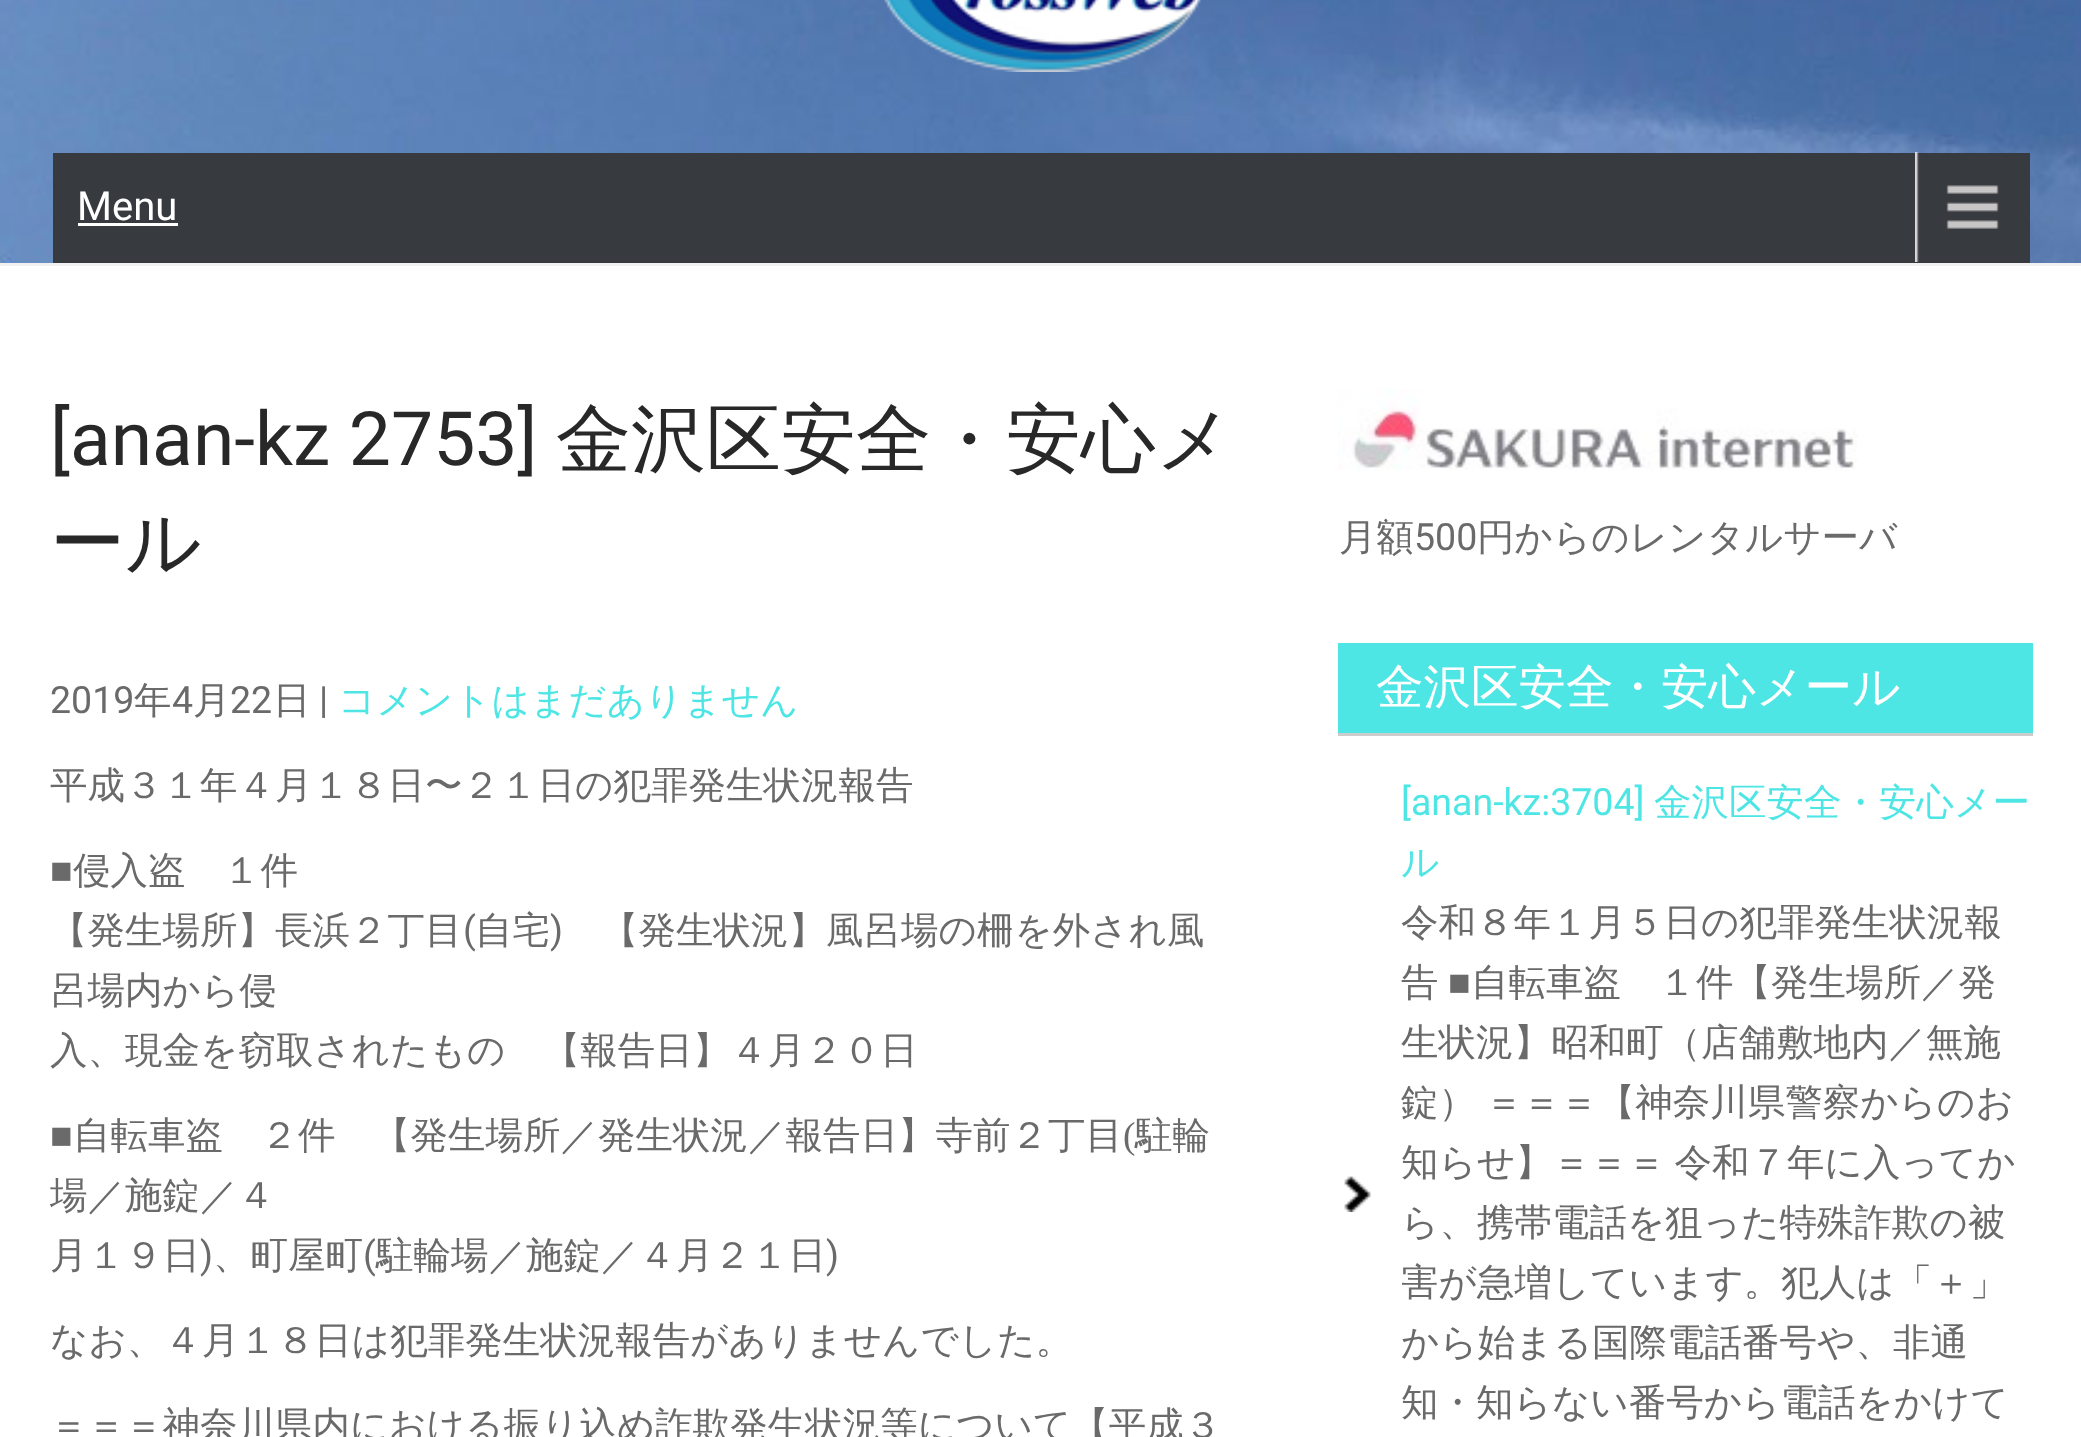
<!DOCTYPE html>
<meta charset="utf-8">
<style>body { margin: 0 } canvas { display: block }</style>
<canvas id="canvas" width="2081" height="1437"></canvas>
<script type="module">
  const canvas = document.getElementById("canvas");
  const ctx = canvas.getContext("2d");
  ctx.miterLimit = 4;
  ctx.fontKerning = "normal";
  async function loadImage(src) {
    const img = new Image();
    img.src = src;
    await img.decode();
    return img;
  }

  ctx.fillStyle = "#ffffff";
  ctx.fillRect(0, 0, 2081, 1437);
  ctx.drawImage(await loadImage("img1.png"), 0, 0, 2081, 263);
  ctx.fillStyle = "#f1f1f1";
  ctx.fillRect(0, 263, 2081, 3);
  ctx.drawImage(await loadImage("img2.png"), 884, 0, 317, 72);
  ctx.fillStyle = "#373a3f";
  ctx.fillRect(53, 153, 1977, 110);
  ctx.drawImage(await loadImage("img3.png"), 1915, 152, 84, 110);
  ctx.font = "40px Roboto";
  ctx.fillStyle = "#ffffff";
  ctx.fillText("Menu", 77, 220);
  ctx.fillRect(78, 223, 100, 3);
  ctx.font = "75px Roboto";
  ctx.fillStyle = "#282828";
  ctx.fillText("[anan-kz 2753]", 50, 465);
  ctx.font = "500 75px WenQuanYi Zen Hei";
  ctx.fillText("金沢区安全・安心メ", 556, 465);
  ctx.fillText("ール", 50, 568);
  ctx.font = "37.5px Roboto";
  ctx.fillStyle = "#6a6a6a";
  ctx.fillText("2019", 50, 713);
  ctx.font = "500 37.5px WenQuanYi Zen Hei";
  ctx.fillText("年", 134, 713);
  ctx.font = "37.5px Roboto";
  ctx.fillText("4", 172, 713);
  ctx.font = "500 37.5px WenQuanYi Zen Hei";
  ctx.fillText("月", 193, 713);
  ctx.font = "37.5px Roboto";
  ctx.fillText("22", 230, 713);
  ctx.font = "500 37.5px WenQuanYi Zen Hei";
  ctx.fillText("日", 273, 713);
  ctx.font = "37.5px Roboto";
  ctx.fillText("|", 319, 713);
  ctx.font = "500 37.5px WenQuanYi Zen Hei";
  ctx.fillStyle = "#4ee5e5";
  ctx.fillText("コメントはまだありません", 338, 713);
  ctx.fillStyle = "#6a6a6a";
  ctx.fillText("平成３１年４月１８日〜２１日の犯罪発生状況報告", 50, 798);
  ctx.font = "37.5px Liberation Serif";
  ctx.fillText("■", 50, 883);
  ctx.font = "500 37.5px WenQuanYi Zen Hei";
  ctx.fillText("侵入盗　１件", 73, 883);
  ctx.fillText("【発生場所】長浜２丁目", 50, 943);
  ctx.font = "37.5px Roboto";
  ctx.fillText("(", 463, 943);
  ctx.font = "500 37.5px WenQuanYi Zen Hei";
  ctx.fillText("自宅", 475, 943);
  ctx.font = "37.5px Roboto";
  ctx.fillText(")", 550, 943);
  ctx.font = "500 37.5px WenQuanYi Zen Hei";
  ctx.fillText("【発生状況】風呂場の柵を外され風", 601, 943);
  ctx.fillText("呂場内から侵", 50, 1003);
  ctx.fillText("入、現金を窃取されたもの　【報告日】４月２０日", 50, 1063);
  ctx.font = "37.5px Liberation Serif";
  ctx.fillText("■", 50, 1148);
  ctx.font = "500 37.5px WenQuanYi Zen Hei";
  ctx.fillText("自転車盗　２件　【発生場所／発生状況／報告日】寺前２丁目", 73, 1148);
  ctx.font = "37.5px Liberation Serif";
  ctx.fillText("(", 1123, 1148);
  ctx.font = "500 37.5px WenQuanYi Zen Hei";
  ctx.fillText("駐輪", 1135, 1148);
  ctx.fillText("場／施錠／４", 50, 1208);
  ctx.fillText("月１９日", 50, 1268);
  ctx.font = "37.5px Roboto";
  ctx.fillText(")", 200, 1268);
  ctx.font = "500 37.5px WenQuanYi Zen Hei";
  ctx.fillText("、町屋町", 213, 1268);
  ctx.font = "37.5px Roboto";
  ctx.fillText("(", 363, 1268);
  ctx.font = "500 37.5px WenQuanYi Zen Hei";
  ctx.fillText("駐輪場／施錠／４月２１日", 376, 1268);
  ctx.font = "37.5px Roboto";
  ctx.fillText(")", 826, 1268);
  ctx.font = "500 37.5px WenQuanYi Zen Hei";
  ctx.fillText("なお、４月１８日は犯罪発生状況報告がありませんでした。", 50, 1353);
  ctx.fillText("＝＝＝神奈川県内における振り込め詐欺発生状況等について【平成３", 50, 1438);
  ctx.drawImage(await loadImage("img4.png"), 1338, 389, 520, 81);
  ctx.fillText("月額", 1339, 550);
  ctx.font = "37.5px Roboto";
  ctx.fillText("500", 1414, 550);
  ctx.font = "500 37.5px WenQuanYi Zen Hei";
  ctx.fillText("円からのレンタルサーバ", 1477, 550);
  ctx.fillStyle = "#4ee5e5";
  ctx.fillRect(1338, 643, 695, 90);
  ctx.fillStyle = "#cccccc";
  ctx.fillRect(1338, 733, 695, 3);
  ctx.font = "500 47.5px WenQuanYi Zen Hei";
  ctx.fillStyle = "#ffffff";
  ctx.fillText("金沢区安全・安心メール", 1376, 703);
  ctx.drawImage(await loadImage("img5.png"), 1344, 1176, 27, 36);
  ctx.font = "37.5px Roboto";
  ctx.fillStyle = "#4ee5e5";
  ctx.fillText("[anan-kz:3704]", 1401, 815);
  ctx.font = "500 37.5px WenQuanYi Zen Hei";
  ctx.fillText("金沢区安全・安心メー", 1654, 815);
  ctx.fillText("ル", 1401, 875);
  ctx.fillStyle = "#6a6a6a";
  ctx.fillText("令和８年１月５日の犯罪発生状況報", 1401, 935);
  ctx.fillText("告", 1401, 995);
  ctx.font = "37.5px Liberation Serif";
  ctx.fillText("■", 1448, 995);
  ctx.font = "500 37.5px WenQuanYi Zen Hei";
  ctx.fillText("自転車盗　１件【発生場所／発", 1471, 995);
  ctx.fillText("生状況】昭和町（店舗敷地内／無施", 1401, 1055);
  ctx.wordSpacing = "-2px";
  ctx.fillText("錠） ＝＝＝【神奈川県警察からのお", 1401, 1115);
  ctx.fillText("知らせ】＝＝＝ 令和７年に入ってか", 1401, 1175);
  ctx.wordSpacing = "0px";
  ctx.fillText("ら、携帯電話を狙った特殊詐欺の被", 1401, 1235);
  ctx.fillText("害が急増しています。犯人は「＋」", 1401, 1295);
  ctx.fillText("から始まる国際電話番号や、非通", 1401, 1355);
  ctx.fillText("知・知らない番号から電話をかけて", 1401, 1415);
</script>
